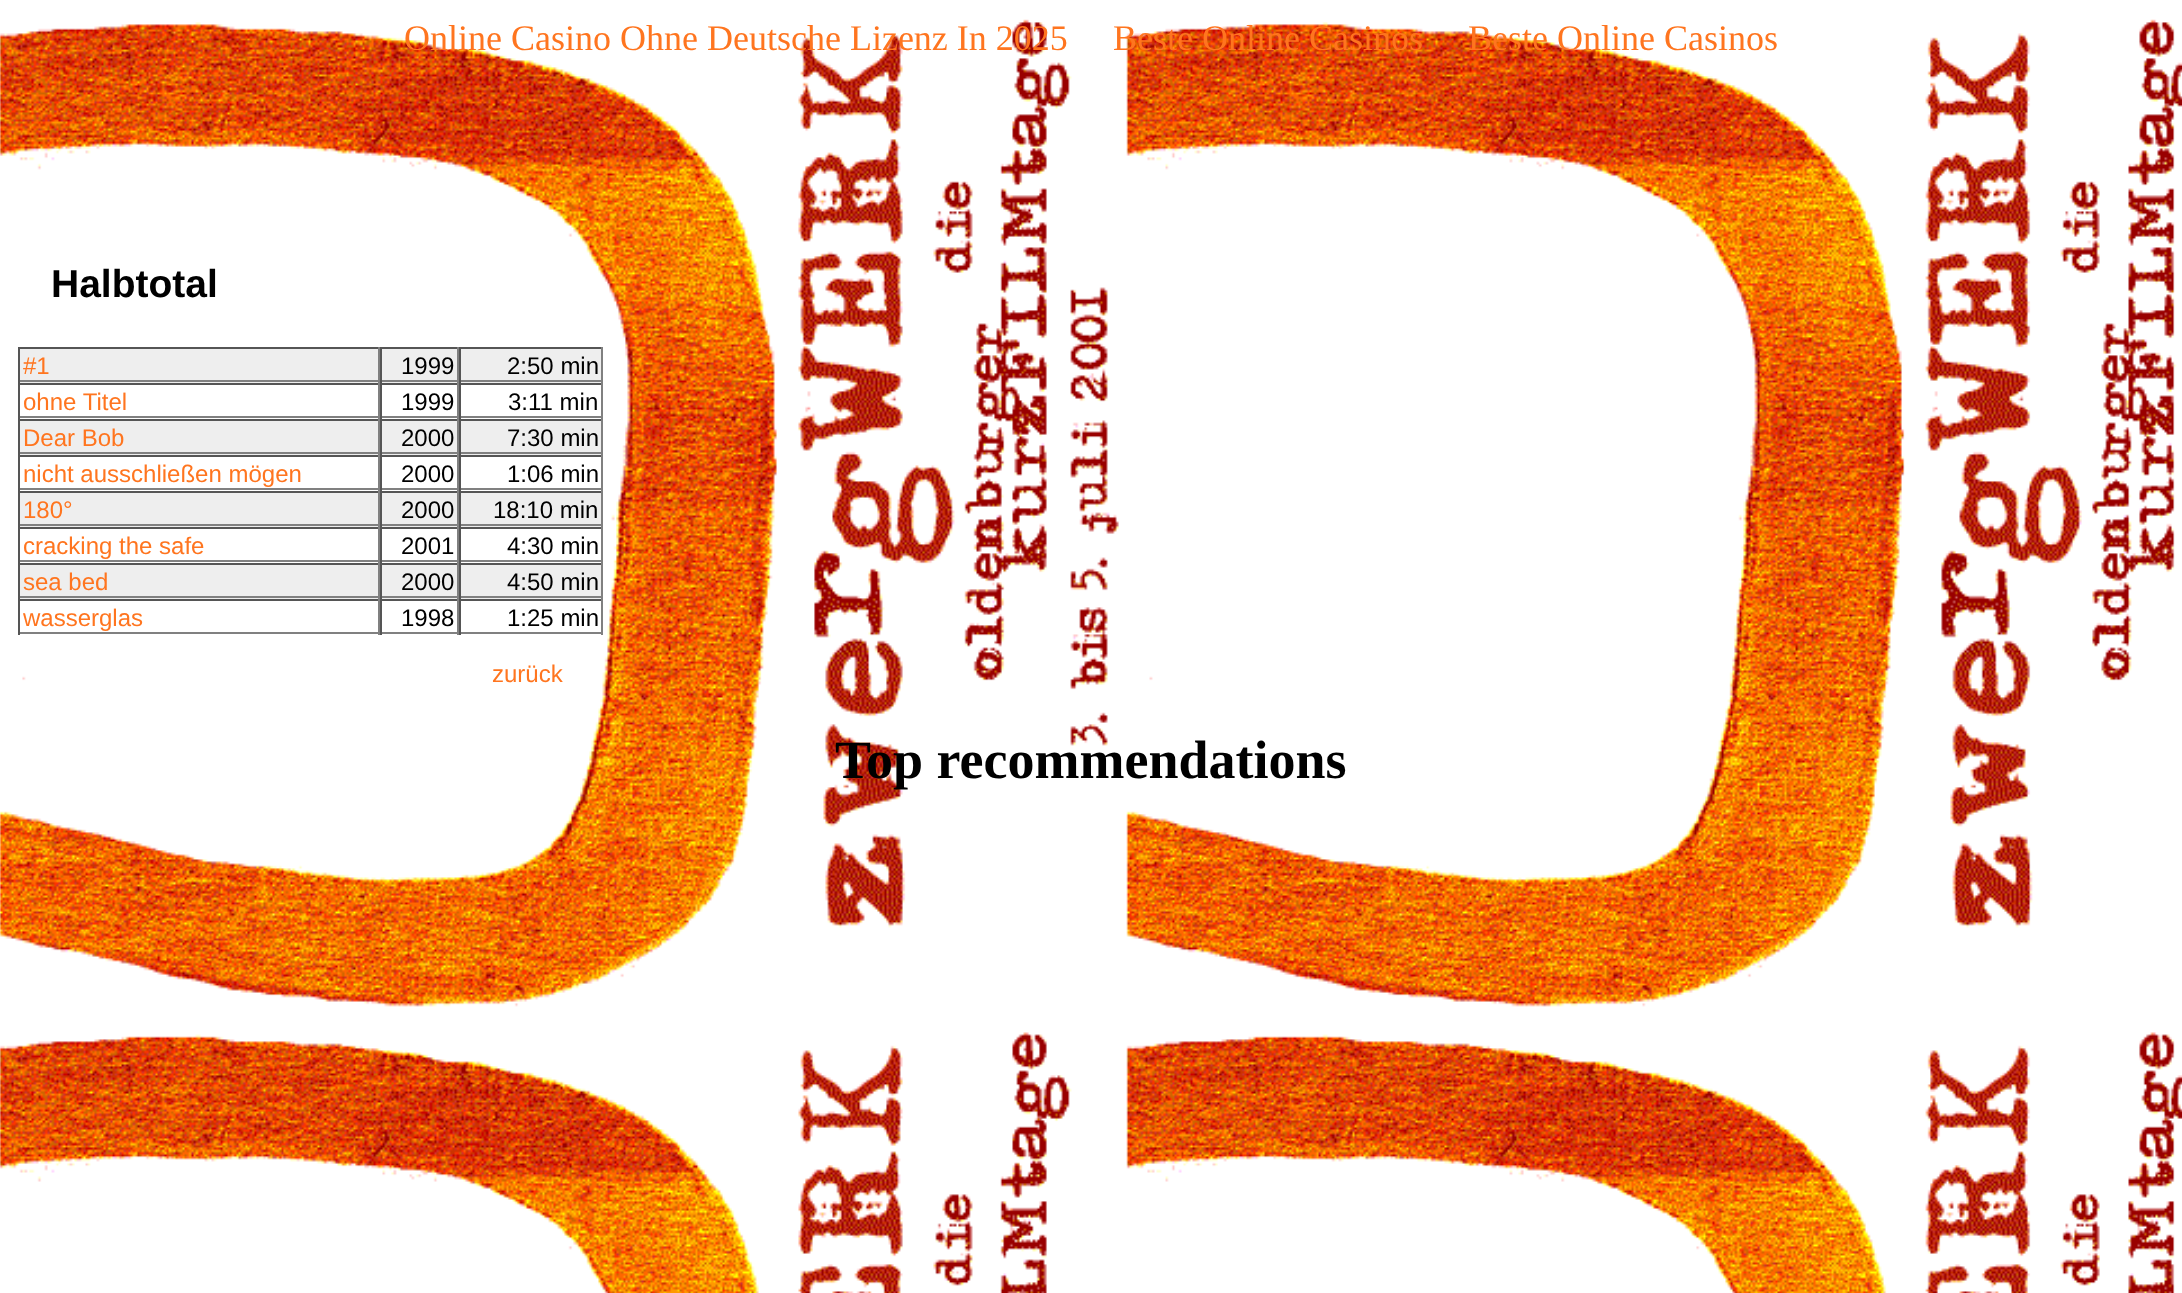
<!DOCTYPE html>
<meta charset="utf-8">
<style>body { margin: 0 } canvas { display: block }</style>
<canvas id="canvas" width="2182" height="1293"></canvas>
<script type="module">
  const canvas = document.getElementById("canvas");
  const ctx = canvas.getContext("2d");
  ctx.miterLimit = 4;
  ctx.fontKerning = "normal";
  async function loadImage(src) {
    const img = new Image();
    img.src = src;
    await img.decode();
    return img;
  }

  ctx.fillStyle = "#ffffff";
  ctx.fillRect(0, 0, 2182, 1293);
  ctx.drawImage(await loadImage("img1.png"), 0, 19, 2182, 1274);
  ctx.font = "36px Liberation Serif";
  ctx.fillStyle = "#ff751f";
  ctx.fillText("Online Casino Ohne Deutsche Lizenz In 2025", 404, 50);
  ctx.fillText("Beste Online Casinos", 1113, 50);
  ctx.fillText("Beste Online Casinos", 1468, 50);
  ctx.font = "bold 39px Liberation Sans";
  ctx.fillStyle = "#000000";
  ctx.fillText("Halbtotal", 51, 297);
  ctx.fillStyle = "#eeeeee";
  ctx.fillRect(20, 349, 581, 34);
  ctx.fillStyle = "#555555";
  ctx.fillRect(18, 347, 585, 2);
  ctx.fillStyle = "#808080";
  ctx.fillRect(378, 347, 2, 36);
  ctx.fillRect(18, 380, 362, 2);
  ctx.fillStyle = "#555555";
  ctx.fillRect(18, 347, 2, 36);
  ctx.font = "24px Liberation Sans";
  ctx.fillStyle = "#ff751f";
  ctx.fillText("#1", 23, 374);
  ctx.fillStyle = "#808080";
  ctx.fillRect(457, 347, 2, 36);
  ctx.fillRect(380, 380, 79, 2);
  ctx.fillStyle = "#555555";
  ctx.fillRect(380, 347, 2, 36);
  ctx.fillStyle = "#000000";
  ctx.fillText("1999", 401, 374);
  ctx.fillStyle = "#808080";
  ctx.fillRect(601, 347, 2, 36);
  ctx.fillRect(459, 380, 144, 2);
  ctx.fillStyle = "#555555";
  ctx.fillRect(459, 347, 2, 36);
  ctx.fillStyle = "#000000";
  ctx.fillText("2:50 min", 507, 374);
  ctx.fillStyle = "#555555";
  ctx.fillRect(18, 383, 585, 2);
  ctx.fillStyle = "#808080";
  ctx.fillRect(378, 383, 2, 36);
  ctx.fillRect(18, 416, 362, 2);
  ctx.fillStyle = "#555555";
  ctx.fillRect(18, 383, 2, 36);
  ctx.fillStyle = "#ff751f";
  ctx.fillText("ohne Titel", 23, 410);
  ctx.fillStyle = "#808080";
  ctx.fillRect(457, 383, 2, 36);
  ctx.fillRect(380, 416, 79, 2);
  ctx.fillStyle = "#555555";
  ctx.fillRect(380, 383, 2, 36);
  ctx.fillStyle = "#000000";
  ctx.fillText("1999", 401, 410);
  ctx.fillStyle = "#808080";
  ctx.fillRect(601, 383, 2, 36);
  ctx.fillRect(459, 416, 144, 2);
  ctx.fillStyle = "#555555";
  ctx.fillRect(459, 383, 2, 36);
  ctx.fillStyle = "#000000";
  ctx.fillText("3:11 min", 508, 410);
  ctx.fillStyle = "#eeeeee";
  ctx.fillRect(20, 421, 581, 34);
  ctx.fillStyle = "#555555";
  ctx.fillRect(18, 419, 585, 2);
  ctx.fillStyle = "#808080";
  ctx.fillRect(378, 419, 2, 36);
  ctx.fillRect(18, 452, 362, 2);
  ctx.fillStyle = "#555555";
  ctx.fillRect(18, 419, 2, 36);
  ctx.fillStyle = "#ff751f";
  ctx.fillText("Dear Bob", 23, 446);
  ctx.fillStyle = "#808080";
  ctx.fillRect(457, 419, 2, 36);
  ctx.fillRect(380, 452, 79, 2);
  ctx.fillStyle = "#555555";
  ctx.fillRect(380, 419, 2, 36);
  ctx.fillStyle = "#000000";
  ctx.fillText("2000", 401, 446);
  ctx.fillStyle = "#808080";
  ctx.fillRect(601, 419, 2, 36);
  ctx.fillRect(459, 452, 144, 2);
  ctx.fillStyle = "#555555";
  ctx.fillRect(459, 419, 2, 36);
  ctx.fillStyle = "#000000";
  ctx.fillText("7:30 min", 507, 446);
  ctx.fillStyle = "#555555";
  ctx.fillRect(18, 455, 585, 2);
  ctx.fillStyle = "#808080";
  ctx.fillRect(378, 455, 2, 36);
  ctx.fillRect(18, 488, 362, 2);
  ctx.fillStyle = "#555555";
  ctx.fillRect(18, 455, 2, 36);
  ctx.fillStyle = "#ff751f";
  ctx.fillText("nicht ausschließen mögen", 23, 482);
  ctx.fillStyle = "#808080";
  ctx.fillRect(457, 455, 2, 36);
  ctx.fillRect(380, 488, 79, 2);
  ctx.fillStyle = "#555555";
  ctx.fillRect(380, 455, 2, 36);
  ctx.fillStyle = "#000000";
  ctx.fillText("2000", 401, 482);
  ctx.fillStyle = "#808080";
  ctx.fillRect(601, 455, 2, 36);
  ctx.fillRect(459, 488, 144, 2);
  ctx.fillStyle = "#555555";
  ctx.fillRect(459, 455, 2, 36);
  ctx.fillStyle = "#000000";
  ctx.fillText("1:06 min", 507, 482);
  ctx.fillStyle = "#eeeeee";
  ctx.fillRect(20, 493, 581, 34);
  ctx.fillStyle = "#555555";
  ctx.fillRect(18, 491, 585, 2);
  ctx.fillStyle = "#808080";
  ctx.fillRect(378, 491, 2, 36);
  ctx.fillRect(18, 524, 362, 2);
  ctx.fillStyle = "#555555";
  ctx.fillRect(18, 491, 2, 36);
  ctx.fillStyle = "#ff751f";
  ctx.fillText("180°", 23, 518);
  ctx.fillStyle = "#808080";
  ctx.fillRect(457, 491, 2, 36);
  ctx.fillRect(380, 524, 79, 2);
  ctx.fillStyle = "#555555";
  ctx.fillRect(380, 491, 2, 36);
  ctx.fillStyle = "#000000";
  ctx.fillText("2000", 401, 518);
  ctx.fillStyle = "#808080";
  ctx.fillRect(601, 491, 2, 36);
  ctx.fillRect(459, 524, 144, 2);
  ctx.fillStyle = "#555555";
  ctx.fillRect(459, 491, 2, 36);
  ctx.fillStyle = "#000000";
  ctx.fillText("18:10 min", 493, 518);
  ctx.fillStyle = "#555555";
  ctx.fillRect(18, 527, 585, 2);
  ctx.fillStyle = "#808080";
  ctx.fillRect(378, 527, 2, 36);
  ctx.fillRect(18, 560, 362, 2);
  ctx.fillStyle = "#555555";
  ctx.fillRect(18, 527, 2, 36);
  ctx.fillStyle = "#ff751f";
  ctx.fillText("cracking the safe", 23, 554);
  ctx.fillStyle = "#808080";
  ctx.fillRect(457, 527, 2, 36);
  ctx.fillRect(380, 560, 79, 2);
  ctx.fillStyle = "#555555";
  ctx.fillRect(380, 527, 2, 36);
  ctx.fillStyle = "#000000";
  ctx.fillText("2001", 401, 554);
  ctx.fillStyle = "#808080";
  ctx.fillRect(601, 527, 2, 36);
  ctx.fillRect(459, 560, 144, 2);
  ctx.fillStyle = "#555555";
  ctx.fillRect(459, 527, 2, 36);
  ctx.fillStyle = "#000000";
  ctx.fillText("4:30 min", 507, 554);
  ctx.fillStyle = "#eeeeee";
  ctx.fillRect(20, 565, 581, 34);
  ctx.fillStyle = "#555555";
  ctx.fillRect(18, 563, 585, 2);
  ctx.fillStyle = "#808080";
  ctx.fillRect(378, 563, 2, 36);
  ctx.fillRect(18, 596, 362, 2);
  ctx.fillStyle = "#555555";
  ctx.fillRect(18, 563, 2, 36);
  ctx.fillStyle = "#ff751f";
  ctx.fillText("sea bed", 23, 590);
  ctx.fillStyle = "#808080";
  ctx.fillRect(457, 563, 2, 36);
  ctx.fillRect(380, 596, 79, 2);
  ctx.fillStyle = "#555555";
  ctx.fillRect(380, 563, 2, 36);
  ctx.fillStyle = "#000000";
  ctx.fillText("2000", 401, 590);
  ctx.fillStyle = "#808080";
  ctx.fillRect(601, 563, 2, 36);
  ctx.fillRect(459, 596, 144, 2);
  ctx.fillStyle = "#555555";
  ctx.fillRect(459, 563, 2, 36);
  ctx.fillStyle = "#000000";
  ctx.fillText("4:50 min", 507, 590);
  ctx.fillStyle = "#555555";
  ctx.fillRect(18, 599, 585, 2);
  ctx.fillStyle = "#808080";
  ctx.fillRect(378, 599, 2, 36);
  ctx.fillRect(18, 632, 362, 2);
  ctx.fillStyle = "#555555";
  ctx.fillRect(18, 599, 2, 36);
  ctx.fillStyle = "#ff751f";
  ctx.fillText("wasserglas", 23, 626);
  ctx.fillStyle = "#808080";
  ctx.fillRect(457, 599, 2, 36);
  ctx.fillRect(380, 632, 79, 2);
  ctx.fillStyle = "#555555";
  ctx.fillRect(380, 599, 2, 36);
  ctx.fillStyle = "#000000";
  ctx.fillText("1998", 401, 626);
  ctx.fillStyle = "#808080";
  ctx.fillRect(601, 599, 2, 36);
  ctx.fillRect(459, 632, 144, 2);
  ctx.fillStyle = "#555555";
  ctx.fillRect(459, 599, 2, 36);
  ctx.fillStyle = "#000000";
  ctx.fillText("1:25 min", 507, 626);
  ctx.fillStyle = "#ff751f";
  ctx.fillText("zurück", 492, 682);
  ctx.font = "bold 54px Liberation Serif";
  ctx.fillStyle = "#000000";
  ctx.fillText("Top recommendations", 835, 778);
</script>
